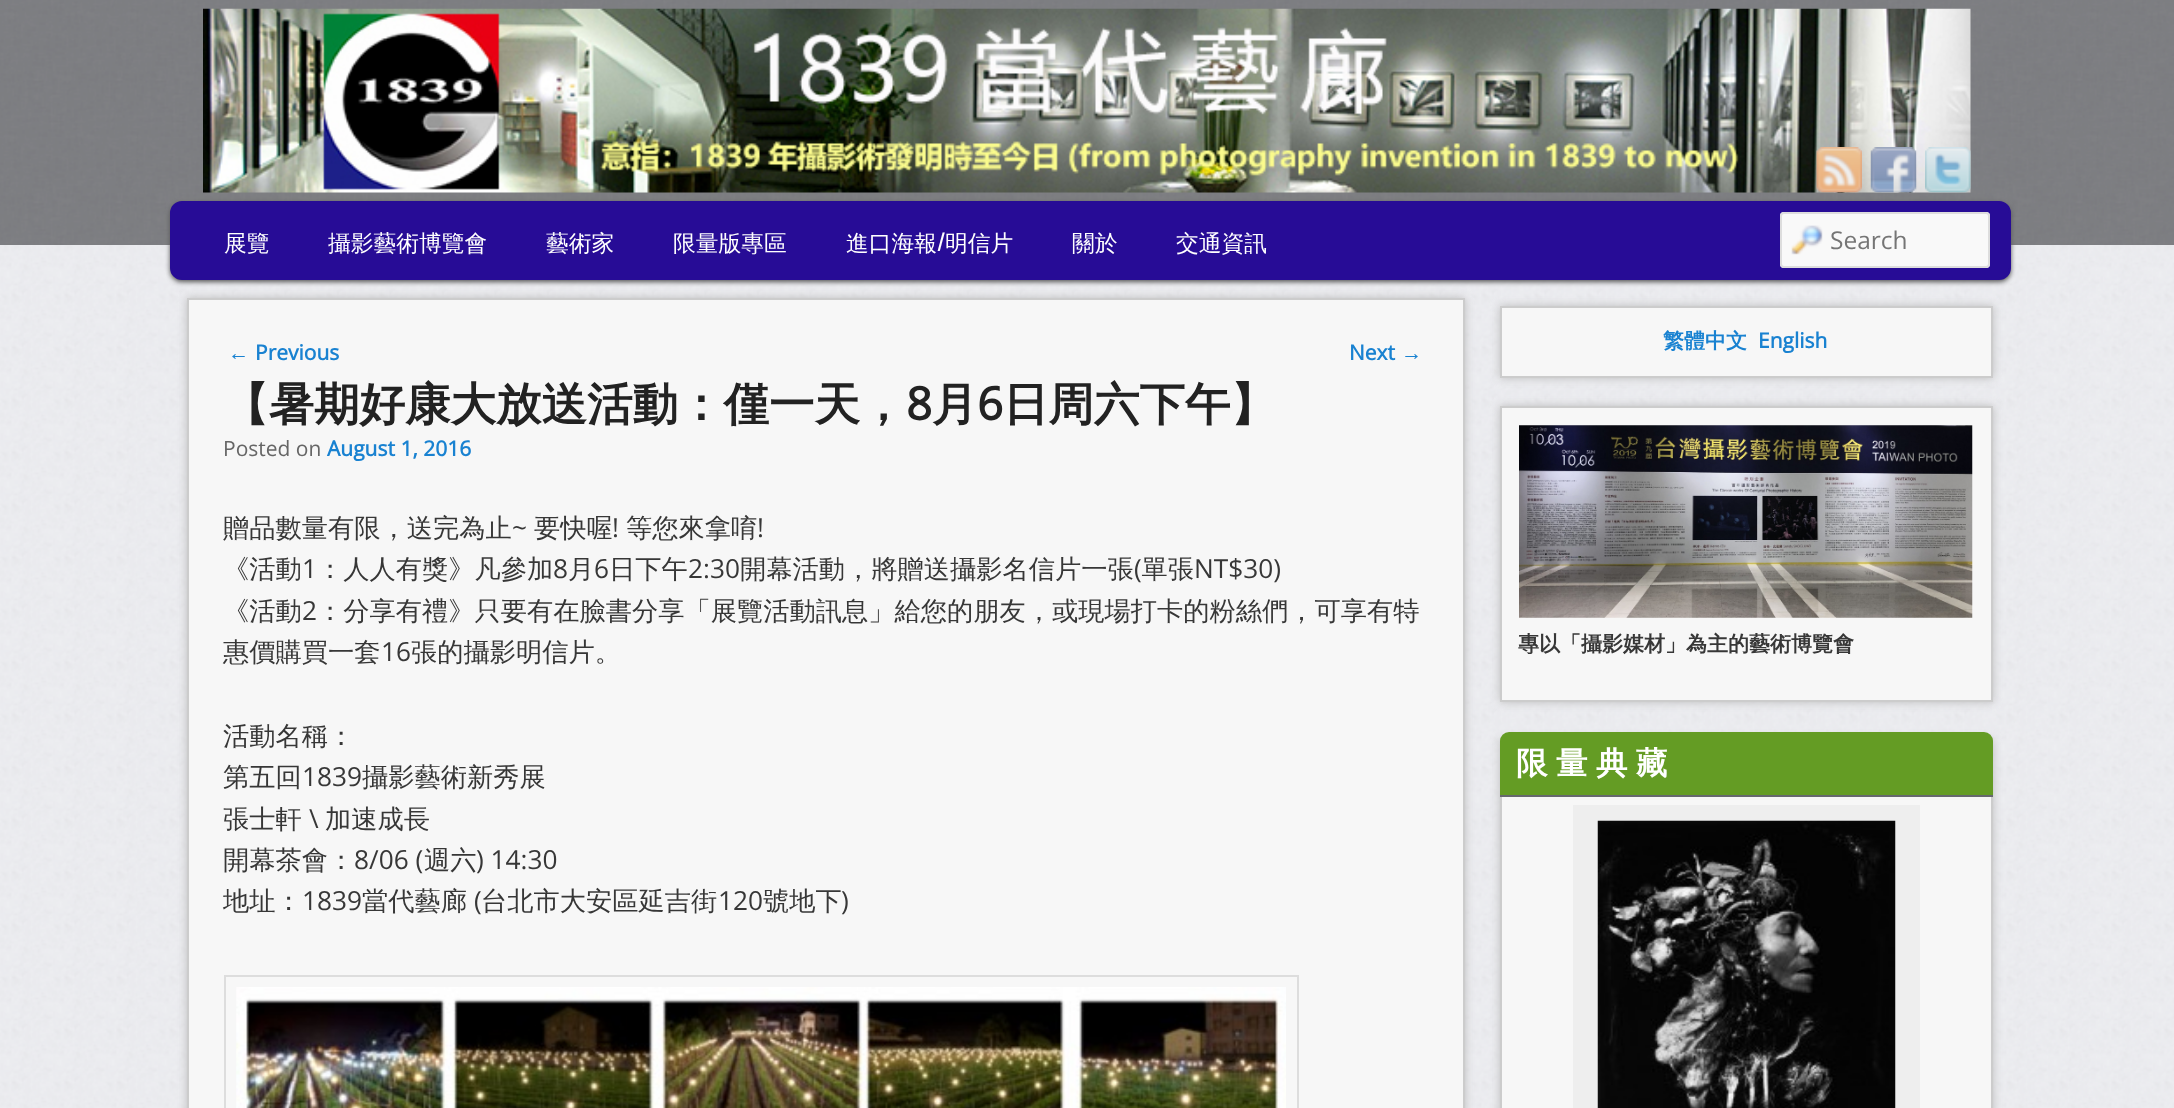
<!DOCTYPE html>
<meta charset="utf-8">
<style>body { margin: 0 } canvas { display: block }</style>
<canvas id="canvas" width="2174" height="1108"></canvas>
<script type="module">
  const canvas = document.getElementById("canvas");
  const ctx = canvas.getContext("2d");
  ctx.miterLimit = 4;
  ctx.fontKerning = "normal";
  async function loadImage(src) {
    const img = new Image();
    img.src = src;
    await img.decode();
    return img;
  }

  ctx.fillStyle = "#ffffff";
  ctx.fillRect(0, 0, 2174, 1108);
  ctx.drawImage(await loadImage("img1.png"), 0, 245, 2174, 863);
  ctx.drawImage(await loadImage("img2.png"), 0, 0, 2174, 245);
  ctx.drawImage(await loadImage("img3.png"), 203, 8, 1768, 185);
  ctx.drawImage(await loadImage("img4.png"), 1816, 147, 46, 46);
  ctx.drawImage(await loadImage("img5.png"), 1870, 147, 47, 46);
  ctx.drawImage(await loadImage("img6.png"), 1925, 147, 46, 46);
  ctx.fillStyle = "#555555";
  ctx.filter = "blur(2.5px)";
  ctx.beginPath();
  ctx.roundRect(170, 203, 1841, 79, 12);
  ctx.fill();
  ctx.filter = "none";
  ctx.fillStyle = "#270c96";
  ctx.beginPath();
  ctx.roundRect(171, 202, 1839, 77, 11);
  ctx.fill();
  ctx.strokeStyle = "#270c96";
  ctx.lineWidth = 2;
  ctx.stroke();
  ctx.font = "500 22.75px WenQuanYi Zen Hei";
  ctx.fillStyle = "#ffffff";
  ctx.fillText("展覽", 224, 251);
  ctx.fillText("攝影藝術博覽會", 328, 251);
  ctx.fillText("藝術家", 546, 251);
  ctx.fillText("限量版專區", 673, 251);
  ctx.fillText("進口海報", 846, 251);
  ctx.font = "22.75px Oswald";
  ctx.fillText("/", 937, 251);
  ctx.font = "500 22.75px WenQuanYi Zen Hei";
  ctx.fillText("明信片", 945, 251);
  ctx.fillText("關於", 1072, 251);
  ctx.fillText("交通資訊", 1176, 251);
  ctx.fillStyle = "#f9f9f9";
  ctx.beginPath();
  ctx.roundRect(1780, 212, 210, 56, 4);
  ctx.fill();
  ctx.drawImage(await loadImage("img7.png"), 1791, 225, 32, 30);
  ctx.beginPath();
  ctx.roundRect(1781, 213, 208, 54, 3);
  ctx.strokeStyle = "#dddddd";
  ctx.stroke();
  ctx.font = "24.5px Open Sans";
  ctx.fillStyle = "#757575";
  ctx.fillText("Search", 1830, 249);
  ctx.fillStyle = "#bbbbbb";
  ctx.filter = "blur(4.5px)";
  ctx.beginPath();
  ctx.rect(187, 298, 1278, 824);
  ctx.fill();
  ctx.filter = "none";
  ctx.fillStyle = "#f7f7f7";
  ctx.beginPath();
  ctx.rect(188, 299, 1276, 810);
  ctx.fill();
  ctx.strokeStyle = "#cccccc";
  ctx.stroke();
  ctx.font = "21px Liberation Serif";
  ctx.fillStyle = "#1982d1";
  ctx.fillText("←", 228, 360);
  ctx.font = "bold 21px Open Sans";
  ctx.fillText("Previous", 255, 360);
  ctx.fillText("Next", 1349, 360);
  ctx.font = "21px Liberation Serif";
  ctx.fillText("→", 1401, 360);
  ctx.font = "bold 45.5px WenQuanYi Zen Hei";
  ctx.fillStyle = "#222222";
  ctx.fillText("【暑期好康大放送活動：僅一天，", 223, 420);
  ctx.font = "bold 45.5px Open Sans";
  ctx.fillText("8", 906, 420);
  ctx.font = "bold 45.5px WenQuanYi Zen Hei";
  ctx.fillText("月", 932, 420);
  ctx.font = "bold 45.5px Open Sans";
  ctx.fillText("6", 977, 420);
  ctx.font = "bold 45.5px WenQuanYi Zen Hei";
  ctx.fillText("日周六下午】", 1003, 420);
  ctx.font = "21px Open Sans";
  ctx.fillStyle = "#666666";
  ctx.fillText("Posted on", 223, 456);
  ctx.font = "bold 21px Open Sans";
  ctx.fillStyle = "#1982d1";
  ctx.fillText("August 1, 2016", 327, 456);
  ctx.font = "500 26.25px WenQuanYi Zen Hei";
  ctx.fillStyle = "#373737";
  ctx.fillText("贈品數量有限，送完為止", 223, 537);
  ctx.font = "26.25px Open Sans";
  ctx.fillText("~", 512, 537);
  ctx.font = "500 26.25px WenQuanYi Zen Hei";
  ctx.fillText("要快喔", 534, 537);
  ctx.font = "26.25px Open Sans";
  ctx.fillText("!", 612, 537);
  ctx.font = "500 26.25px WenQuanYi Zen Hei";
  ctx.fillText("等您來拿唷", 626, 537);
  ctx.font = "26.25px Open Sans";
  ctx.fillText("!", 757, 537);
  ctx.font = "500 26.25px WenQuanYi Zen Hei";
  ctx.fillText("《活動", 223, 578);
  ctx.font = "26.25px Open Sans";
  ctx.fillText("1", 302, 578);
  ctx.font = "500 26.25px WenQuanYi Zen Hei";
  ctx.fillText("：人人有獎》凡參加", 317, 578);
  ctx.font = "26.25px Open Sans";
  ctx.fillText("8", 553, 578);
  ctx.font = "500 26.25px WenQuanYi Zen Hei";
  ctx.fillText("月", 568, 578);
  ctx.font = "26.25px Open Sans";
  ctx.fillText("6", 594, 578);
  ctx.font = "500 26.25px WenQuanYi Zen Hei";
  ctx.fillText("日下午", 609, 578);
  ctx.font = "26.25px Open Sans";
  ctx.fillText("2:30", 688, 578);
  ctx.font = "500 26.25px WenQuanYi Zen Hei";
  ctx.fillText("開幕活動，將贈送攝影名信片一張 單張", 740, 578);
  ctx.font = "26.25px Open Sans";
  ctx.fillText("NT$30)", 1194, 578);
  ctx.fillText("(", 1134, 578);
  ctx.font = "500 26.25px WenQuanYi Zen Hei";
  ctx.fillText("《活動", 223, 620);
  ctx.font = "26.25px Open Sans";
  ctx.fillText("2", 302, 620);
  ctx.font = "500 26.25px WenQuanYi Zen Hei";
  ctx.fillText("：分享有禮》只要有在臉書分享「展覽活動訊息」給您的朋友，或現場打卡的粉絲們，可享有特", 317, 620);
  ctx.fillText("惠價購買一套", 223, 661);
  ctx.font = "26.25px Open Sans";
  ctx.fillText("16", 381, 661);
  ctx.font = "500 26.25px WenQuanYi Zen Hei";
  ctx.fillText("張的攝影明信片。", 411, 661);
  ctx.fillText("活動名稱：", 223, 745);
  ctx.fillText("第五回", 223, 786);
  ctx.font = "26.25px Open Sans";
  ctx.fillText("1839", 302, 786);
  ctx.font = "500 26.25px WenQuanYi Zen Hei";
  ctx.fillText("攝影藝術新秀展", 362, 786);
  ctx.fillText("張士軒", 223, 828);
  ctx.font = "26.25px Open Sans";
  ctx.fillText("\\", 309, 828);
  ctx.font = "500 26.25px WenQuanYi Zen Hei";
  ctx.fillText("加速成長", 325, 828);
  ctx.fillText("開幕茶會：", 223, 869);
  ctx.font = "26.25px Open Sans";
  ctx.fillText("8/06 (", 354, 869);
  ctx.font = "500 26.25px WenQuanYi Zen Hei";
  ctx.fillText("週六", 424, 869);
  ctx.font = "26.25px Open Sans";
  ctx.fillText(") 14:30", 476, 869);
  ctx.font = "500 26.25px WenQuanYi Zen Hei";
  ctx.fillText("地址：", 223, 910);
  ctx.font = "26.25px Open Sans";
  ctx.fillText("1839", 302, 910);
  ctx.font = "500 26.25px WenQuanYi Zen Hei";
  ctx.fillText("當代藝廊", 362, 910);
  ctx.font = "26.25px Open Sans";
  ctx.fillText("(", 474, 910);
  ctx.font = "500 26.25px WenQuanYi Zen Hei";
  ctx.fillText("台北市大安區延吉街", 481, 910);
  ctx.font = "26.25px Open Sans";
  ctx.fillText("120", 718, 910);
  ctx.font = "500 26.25px WenQuanYi Zen Hei";
  ctx.fillText("號地下", 763, 910);
  ctx.font = "26.25px Open Sans";
  ctx.fillText(")", 841, 910);
  ctx.strokeStyle = "#dddddd";
  ctx.strokeRect(225, 976, 1073, 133);
  ctx.drawImage(await loadImage("img8.png"), 236, 987, 1050, 121);
  ctx.fillStyle = "#bbbbbb";
  ctx.filter = "blur(4.5px)";
  ctx.beginPath();
  ctx.rect(1500, 306, 493, 72);
  ctx.fill();
  ctx.filter = "none";
  ctx.fillStyle = "#f7f7f7";
  ctx.beginPath();
  ctx.rect(1501, 307, 491, 70);
  ctx.fill();
  ctx.strokeStyle = "#cccccc";
  ctx.stroke();
  ctx.font = "bold 21px WenQuanYi Zen Hei";
  ctx.fillStyle = "#1982d1";
  ctx.fillText("繁體中文", 1663, 348);
  ctx.font = "bold 21px Open Sans";
  ctx.fillText("English", 1758, 348);
  ctx.fillStyle = "#bbbbbb";
  ctx.filter = "blur(4.5px)";
  ctx.beginPath();
  ctx.rect(1500, 406, 493, 296);
  ctx.fill();
  ctx.filter = "none";
  ctx.fillStyle = "#f7f7f7";
  ctx.beginPath();
  ctx.rect(1501, 407, 491, 294);
  ctx.fill();
  ctx.stroke();
  ctx.drawImage(await loadImage("img9.png"), 1519, 425, 454, 193);
  ctx.font = "bold 21px WenQuanYi Zen Hei";
  ctx.fillStyle = "#373737";
  ctx.fillText("專以「攝影媒材」為主的藝術博覽會", 1518, 651);
  ctx.fillStyle = "#bbbbbb";
  ctx.filter = "blur(4.5px)";
  ctx.beginPath();
  ctx.rect(1500, 739, 493, 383);
  ctx.fill();
  ctx.filter = "none";
  ctx.fillStyle = "#f7f7f7";
  ctx.fillRect(1502, 797, 489, 311);
  ctx.strokeRect(1501, 740, 491, 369);
  ctx.fillStyle = "#649c24";
  ctx.beginPath();
  ctx.roundRect(1500, 732, 493, 64, [9, 9, 0, 0]);
  ctx.fill();
  ctx.fillStyle = "#66686e";
  ctx.fillRect(1500, 795, 493, 2);
  ctx.wordSpacing = "-1px";
  ctx.font = "bold 31.5px WenQuanYi Zen Hei";
  ctx.fillStyle = "#ffffff";
  ctx.fillText("限 量 典 藏", 1516, 774);
  ctx.fillStyle = "#eeeeee";
  ctx.fillRect(1573, 805, 347, 303);
  ctx.drawImage(await loadImage("img10.png"), 1597, 820, 299, 288);
</script>
